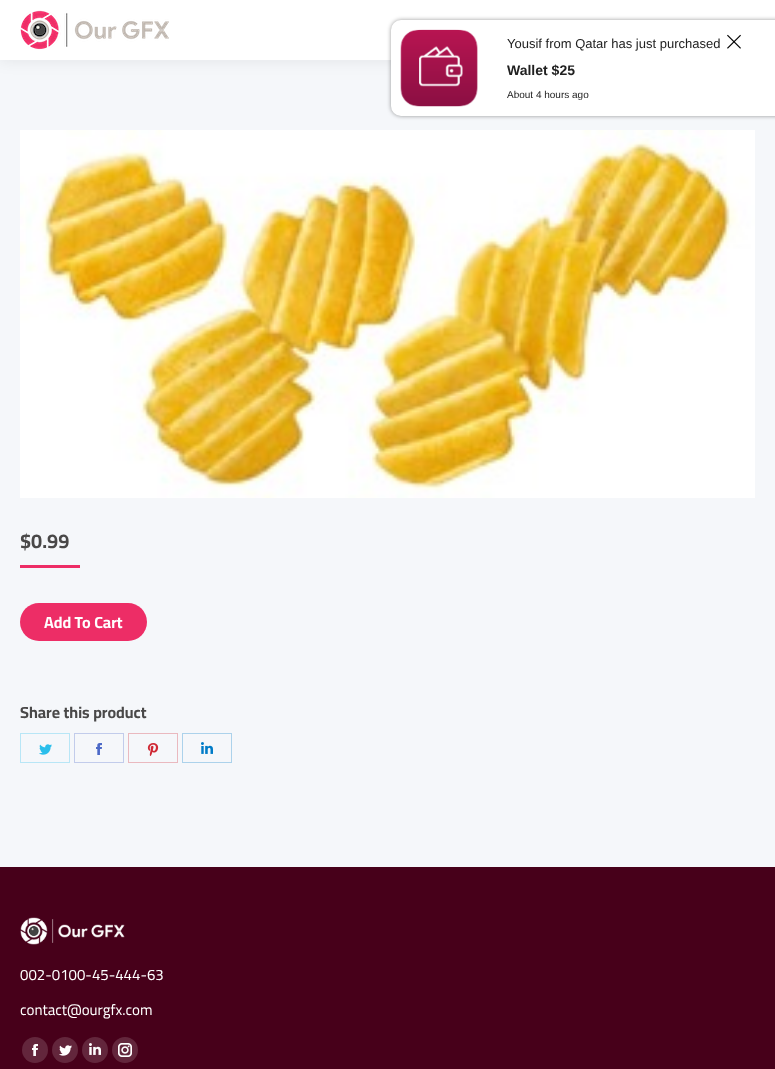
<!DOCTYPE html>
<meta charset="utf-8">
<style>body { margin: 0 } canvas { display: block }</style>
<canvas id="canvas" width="775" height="1069"></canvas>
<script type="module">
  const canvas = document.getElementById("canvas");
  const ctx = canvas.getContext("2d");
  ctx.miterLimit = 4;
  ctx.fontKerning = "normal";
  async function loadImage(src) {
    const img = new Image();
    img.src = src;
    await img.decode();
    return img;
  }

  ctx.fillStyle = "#f5f7fa";
  ctx.fillRect(0, 0, 775, 1069);
  ctx.fillStyle = "rgba(0, 0, 0, 0.07)";
  ctx.filter = "blur(7.5px)";
  ctx.beginPath();
  ctx.rect(-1, -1, 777, 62);
  ctx.fill();
  ctx.filter = "none";
  ctx.fillStyle = "#ffffff";
  ctx.fillRect(0, 0, 775, 60);
  ctx.fillStyle = "rgba(0, 0, 0, 0.4)";
  ctx.filter = "blur(2px)";
  ctx.beginPath();
  ctx.roundRect(391, 20, 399, 96, 10);
  ctx.fill();
  ctx.filter = "none";
  ctx.fillStyle = "#ffffff";
  ctx.beginPath();
  ctx.roundRect(391, 20, 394, 96, 10);
  ctx.fill();
  ctx.drawImage(await loadImage("img1.png"), 400, 29, 78, 78);
  ctx.font = "13px Liberation Sans";
  ctx.fillStyle = "#212121";
  ctx.fillText("Yousif from Qatar has just purchased", 507, 48);
  ctx.font = "bold 14px Liberation Sans";
  ctx.fillText("Wallet $25", 507, 75);
  ctx.font = "10px Liberation Sans";
  ctx.fillText("About 4 hours ago", 507, 98);
  ctx.drawImage(await loadImage("img2.png"), 727, 34, 14, 15);
  ctx.drawImage(await loadImage("img3.png"), 20, 10, 149, 40);
  ctx.drawImage(await loadImage("img4.png"), 20, 130, 735, 368);
  ctx.font = "bold 20px Cairo";
  ctx.fillStyle = "#494848";
  ctx.fillText("$0.99", 20, 548);
  ctx.fillStyle = "#ed2d66";
  ctx.fillRect(20, 565, 60, 3);
  ctx.beginPath();
  ctx.roundRect(20, 603, 127, 38, 19);
  ctx.fill();
  ctx.font = "bold 16px Cairo";
  ctx.fillStyle = "#ffffff";
  ctx.fillText("Add To Cart", 44, 628);
  ctx.fillStyle = "#494848";
  ctx.fillText("Share this product", 20, 718);
  ctx.strokeStyle = "#b8e6f6";
  ctx.strokeRect(20.5, 733.5, 49, 29);
  ctx.drawImage(await loadImage("img5.png"), 39, 744, 13, 11);
  ctx.strokeStyle = "#c2cceb";
  ctx.strokeRect(74.5, 733.5, 49, 29);
  ctx.drawImage(await loadImage("img6.png"), 96, 743, 6, 12);
  ctx.strokeStyle = "#eab9bf";
  ctx.strokeRect(128.5, 733.5, 49, 29);
  ctx.drawImage(await loadImage("img7.png"), 147, 743, 12, 13);
  ctx.strokeStyle = "#acd2eb";
  ctx.strokeRect(182.5, 733.5, 49, 29);
  ctx.drawImage(await loadImage("img8.png"), 201, 742, 12, 12);
  ctx.fillStyle = "#47001a";
  ctx.fillRect(0, 867, 775, 202);
  ctx.drawImage(await loadImage("img9.png"), 20, 917, 105, 28);
  ctx.font = "15px Cairo";
  ctx.fillStyle = "#ffffff";
  ctx.fillText("002-0100-45-444-63", 20, 980);
  ctx.fillText("contact@ourgfx.com", 20, 1015);
  ctx.fillStyle = "#63263c";
  ctx.beginPath();
  ctx.arc(35, 1050, 13, 0, Math.PI * 2);
  ctx.fill();
  ctx.drawImage(await loadImage("img10.png"), 32, 1044, 6, 12);
  ctx.beginPath();
  ctx.arc(65, 1050, 13, 0, Math.PI * 2);
  ctx.fill();
  ctx.drawImage(await loadImage("img11.png"), 59, 1045, 13, 11);
  ctx.beginPath();
  ctx.arc(95, 1050, 13, 0, Math.PI * 2);
  ctx.fill();
  ctx.drawImage(await loadImage("img12.png"), 89, 1043, 12, 12);
  ctx.beginPath();
  ctx.arc(125, 1050, 13, 0, Math.PI * 2);
  ctx.fill();
  ctx.drawImage(await loadImage("img13.png"), 118, 1043, 14, 14);
</script>
